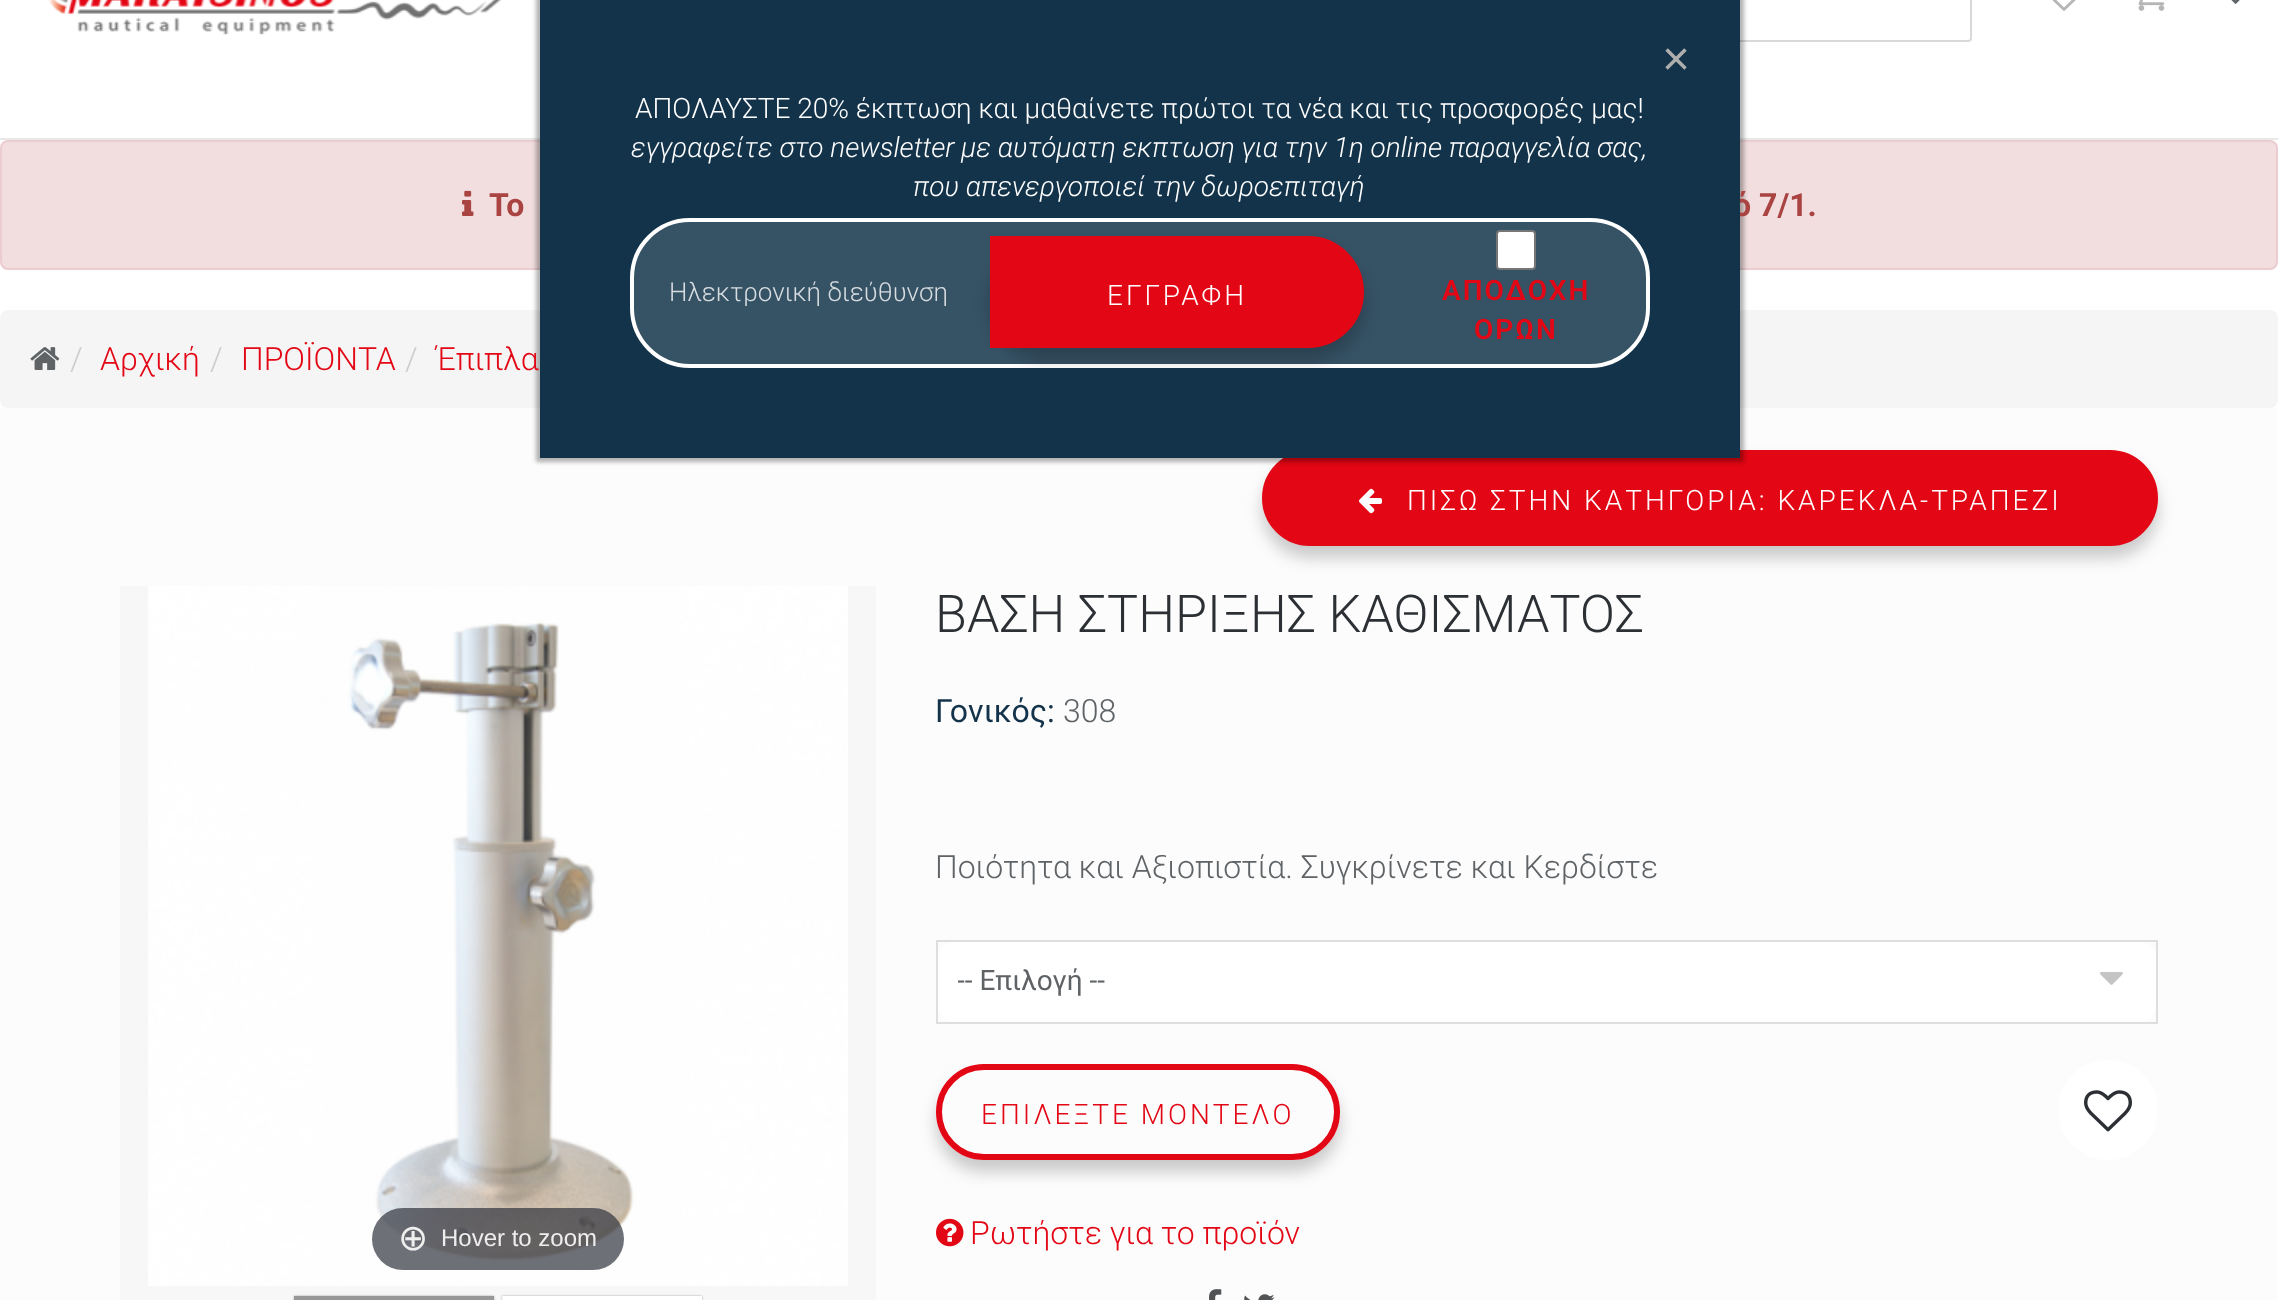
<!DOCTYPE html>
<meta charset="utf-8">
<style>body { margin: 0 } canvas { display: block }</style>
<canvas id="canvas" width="2278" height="1300"></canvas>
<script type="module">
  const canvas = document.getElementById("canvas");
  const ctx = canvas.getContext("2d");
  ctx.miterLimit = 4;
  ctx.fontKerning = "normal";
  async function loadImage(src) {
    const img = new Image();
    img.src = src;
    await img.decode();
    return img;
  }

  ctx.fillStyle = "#ffffff";
  ctx.fillRect(0, 0, 2278, 1300);
  ctx.fillStyle = "#e8e8e8";
  ctx.fillRect(0, 138, 2278, 2);
  ctx.beginPath();
  ctx.roundRect(1655, -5, 316, 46, 3);
  ctx.strokeStyle = "#d9d9d9";
  ctx.lineWidth = 2;
  ctx.stroke();
  ctx.fillStyle = "#f2dede";
  ctx.beginPath();
  ctx.roundRect(1, 141, 2276, 128, 7);
  ctx.fill();
  ctx.strokeStyle = "#ebccd1";
  ctx.stroke();
  ctx.fillStyle = "#f5f5f5";
  ctx.beginPath();
  ctx.roundRect(0, 310, 2278, 98, 8);
  ctx.fill();
  ctx.fillStyle = "#fcfcfc";
  ctx.fillRect(0, 408, 2278, 892);
  ctx.fillStyle = "rgba(0, 0, 0, 0.2)";
  ctx.filter = "blur(8px)";
  ctx.beginPath();
  ctx.roundRect(1262, 462, 896, 96, 48);
  ctx.fill();
  ctx.filter = "none";
  ctx.fillStyle = "#e30614";
  ctx.beginPath();
  ctx.roundRect(1265, 453, 890, 90, 45);
  ctx.fill();
  ctx.strokeStyle = "#e30614";
  ctx.lineWidth = 6;
  ctx.stroke();
  ctx.fillStyle = "rgba(0, 0, 1, 0.3)";
  ctx.filter = "blur(2px)";
  ctx.beginPath();
  ctx.rect(536, -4, 1208, 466);
  ctx.fill();
  ctx.filter = "none";
  ctx.font = "bold 32px Roboto";
  ctx.fillStyle = "#a94442";
  ctx.fillText("ό 7/1.", 1733, 216);
  ctx.fillStyle = "#13334a";
  ctx.fillRect(540, 0, 1200, 458);
  ctx.font = "48px Liberation Sans";
  ctx.fillStyle = "#aeaeae";
  ctx.fillText("×", 1662, 75);
  ctx.font = "300 28px Roboto";
  ctx.fillStyle = "#ffffff";
  ctx.fillText("ΑΠΟΛΑΥΣΤΕ 20% έκπτωση και μαθαίνετε πρώτοι τα νέα και τις προσφορές μας!", 635, 118);
  ctx.font = "italic 300 28px Roboto";
  ctx.fillText("εγγραφείτε στο newsletter με αυτόματη εκπτωση για την 1η online παραγγελία σας,", 631, 157);
  ctx.fillText("που απενεργοποιεί την δωροεπιταγή", 913, 196);
  ctx.fillStyle = "#365265";
  ctx.beginPath();
  ctx.roundRect(632, 220, 1016, 146, 58);
  ctx.fill();
  ctx.strokeStyle = "#ffffff";
  ctx.lineWidth = 4;
  ctx.stroke();
  ctx.save();
  ctx.beginPath();
  ctx.rect(670, 276, 290, 30);
  ctx.clip();
  ctx.font = "300 26px Roboto";
  ctx.fillStyle = "#d7dce0";
  ctx.fillText("Ηλεκτρονική διεύθυνση", 669, 301);
  ctx.restore();
  ctx.save();
  ctx.beginPath();
  ctx.rect(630, 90, 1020, 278);
  ctx.clip();
  ctx.fillStyle = "rgba(0, 0, 0, 0.2)";
  ctx.filter = "blur(8px)";
  ctx.beginPath();
  ctx.roundRect(990, 248, 374, 112, 56);
  ctx.fill();
  ctx.filter = "none";
  ctx.restore();
  ctx.fillStyle = "#e30614";
  ctx.beginPath();
  ctx.roundRect(993, 239, 368, 106, [0, 53, 53, 0]);
  ctx.fill();
  ctx.strokeStyle = "#e30614";
  ctx.lineWidth = 6;
  ctx.stroke();
  ctx.letterSpacing = "3px";
  ctx.font = "300 28px Roboto";
  ctx.fillStyle = "#ffffff";
  ctx.fillText("ΕΓΓΡΑΦΗ", 1107, 305);
  ctx.beginPath();
  ctx.roundRect(1497, 231, 38, 38, 3);
  ctx.fill();
  ctx.strokeStyle = "#767676";
  ctx.lineWidth = 2;
  ctx.stroke();
  ctx.letterSpacing = "2px";
  ctx.font = "600 28px Roboto";
  ctx.fillStyle = "#e30614";
  ctx.fillText("ΑΠΟΔΟΧΗ", 1442, 300);
  ctx.fillText("ΟΡΩΝ", 1474, 339);
  ctx.drawImage(await loadImage("img1.png"), 48, 0, 454, 35);
  ctx.drawImage(await loadImage("img2.png"), 2052, 0, 24, 11);
  ctx.drawImage(await loadImage("img3.png"), 2138, 0, 27, 11);
  ctx.drawImage(await loadImage("img4.png"), 2231, 0, 9, 4);
  ctx.drawImage(await loadImage("img5.png"), 462, 190, 12, 26);
  ctx.letterSpacing = "0px";
  ctx.font = "bold 32px Roboto";
  ctx.fillStyle = "#a94442";
  ctx.fillText("Το", 489, 216);
  ctx.drawImage(await loadImage("img6.png"), 30, 347, 30, 23);
  ctx.font = "300 32px Roboto";
  ctx.fillStyle = "#cccccc";
  ctx.fillText("/", 70, 370);
  ctx.fillStyle = "#e30614";
  ctx.fillText("Αρχική", 100, 370);
  ctx.fillStyle = "#cccccc";
  ctx.fillText("/", 210, 370);
  ctx.fillStyle = "#e30614";
  ctx.fillText("ΠΡΟΪΟΝΤΑ", 241, 370);
  ctx.fillStyle = "#cccccc";
  ctx.fillText("/", 405, 370);
  ctx.fillStyle = "#e30614";
  ctx.fillText("Έπιπλα", 436, 370);
  ctx.drawImage(await loadImage("img7.png"), 1359, 488, 23, 26);
  ctx.letterSpacing = "3px";
  ctx.font = "300 28px Roboto";
  ctx.fillStyle = "#ffffff";
  ctx.fillText("ΠΙΣΩ ΣΤΗΝ ΚΑΤΗΓΟΡΙΑ: ΚΑΡΕΚΛΑ-ΤΡΑΠΕΖΙ", 1407, 510);
  ctx.fillStyle = "#f7f7f7";
  ctx.fillRect(120, 586, 756, 714);
  ctx.drawImage(await loadImage("img8.png"), 148, 586, 700, 700);
  ctx.fillStyle = "rgba(49, 51, 61, 0.7)";
  ctx.beginPath();
  ctx.roundRect(372, 1208, 252, 62, 31);
  ctx.fill();
  ctx.letterSpacing = "0px";
  ctx.font = "36px DejaVu Sans";
  ctx.fillStyle = "#eeeeee";
  ctx.fillText("⊕", 398, 1250);
  ctx.font = "24px Liberation Sans";
  ctx.fillText("Hover to zoom", 441, 1246);
  ctx.fillStyle = "rgba(0, 0, 0, 0.3)";
  ctx.filter = "blur(1px)";
  ctx.beginPath();
  ctx.rect(294, 1296, 200, 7);
  ctx.fill();
  ctx.filter = "none";
  ctx.fillStyle = "#989898";
  ctx.fillRect(294, 1296, 200, 4);
  ctx.fillStyle = "rgba(0, 0, 0, 0.3)";
  ctx.filter = "blur(1px)";
  ctx.beginPath();
  ctx.rect(502, 1296, 200, 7);
  ctx.fill();
  ctx.filter = "none";
  ctx.drawImage(await loadImage("img9.png"), 501, 1296, 201, 4);
  ctx.font = "300 52px Roboto";
  ctx.fillStyle = "#2c3035";
  ctx.fillText("ΒΑΣΗ ΣΤΗΡΙΞΗΣ ΚΑΘΙΣΜΑΤΟΣ", 935, 632);
  ctx.font = "32px Roboto";
  ctx.fillStyle = "#13334a";
  ctx.fillText("Γονικός:", 935, 722);
  ctx.font = "300 32px Roboto";
  ctx.fillStyle = "#5f6366";
  ctx.fillText("308", 1063, 722);
  ctx.fillText("Ποιότητα και Αξιοπιστία. Συγκρίνετε και Κερδίστε", 935, 878);
  ctx.strokeStyle = "#dedede";
  ctx.strokeRect(937, 941, 1220, 82);
  ctx.fillStyle = "#ffffff";
  ctx.beginPath();
  ctx.roundRect(938, 942, 1218, 80, 16);
  ctx.fill();
  ctx.save();
  ctx.beginPath();
  ctx.rect(958, 960, 1126, 40);
  ctx.clip();
  ctx.font = "28px Roboto";
  ctx.fillStyle = "#5f6366";
  ctx.fillText("-- Επιλογή --", 957, 990);
  ctx.restore();
  ctx.drawImage(await loadImage("img10.png"), 2100, 972, 23, 13);
  ctx.save();
  ctx.beginPath();
  ctx.moveTo(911, 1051);
  ctx.lineTo(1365, 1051);
  ctx.lineTo(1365, 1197);
  ctx.lineTo(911, 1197);
  ctx.closePath();
  ctx.moveTo(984, 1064);
  ctx.lineTo(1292, 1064);
  ctx.bezierCurveTo(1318.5, 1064, 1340, 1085.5, 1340, 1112);
  ctx.bezierCurveTo(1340, 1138.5, 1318.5, 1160, 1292, 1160);
  ctx.lineTo(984, 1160);
  ctx.bezierCurveTo(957.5, 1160, 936, 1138.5, 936, 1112);
  ctx.bezierCurveTo(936, 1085.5, 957.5, 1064, 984, 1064);
  ctx.closePath();
  ctx.clip("evenodd");
  ctx.fillStyle = "rgba(0, 0, 0, 0.2)";
  ctx.filter = "blur(8px)";
  ctx.beginPath();
  ctx.roundRect(936, 1076, 404, 96, 48);
  ctx.fill();
  ctx.filter = "none";
  ctx.restore();
  ctx.beginPath();
  ctx.roundRect(939, 1067, 398, 90, 45);
  ctx.strokeStyle = "#e30614";
  ctx.lineWidth = 6;
  ctx.stroke();
  ctx.letterSpacing = "3px";
  ctx.font = "300 28px Roboto";
  ctx.fillStyle = "#e30614";
  ctx.fillText("ΕΠΙΛΕΞΤΕ ΜΟΝΤΕΛΟ", 981, 1124);
  ctx.fillStyle = "#ffffff";
  ctx.beginPath();
  ctx.arc(2108, 1110, 50, 0, Math.PI * 2);
  ctx.fill();
  ctx.drawImage(await loadImage("img11.png"), 2084, 1090, 48, 42);
  ctx.drawImage(await loadImage("img12.png"), 936, 1218, 28, 29);
  ctx.letterSpacing = "0px";
  ctx.font = "300 32px Roboto";
  ctx.fillStyle = "#e30614";
  ctx.fillText("Ρωτήστε για το προϊόν", 970, 1244);
  ctx.drawImage(await loadImage("img13.png"), 1209, 1289, 13, 11);
  ctx.drawImage(await loadImage("img14.png"), 1244, 1294, 31, 6);
</script>
